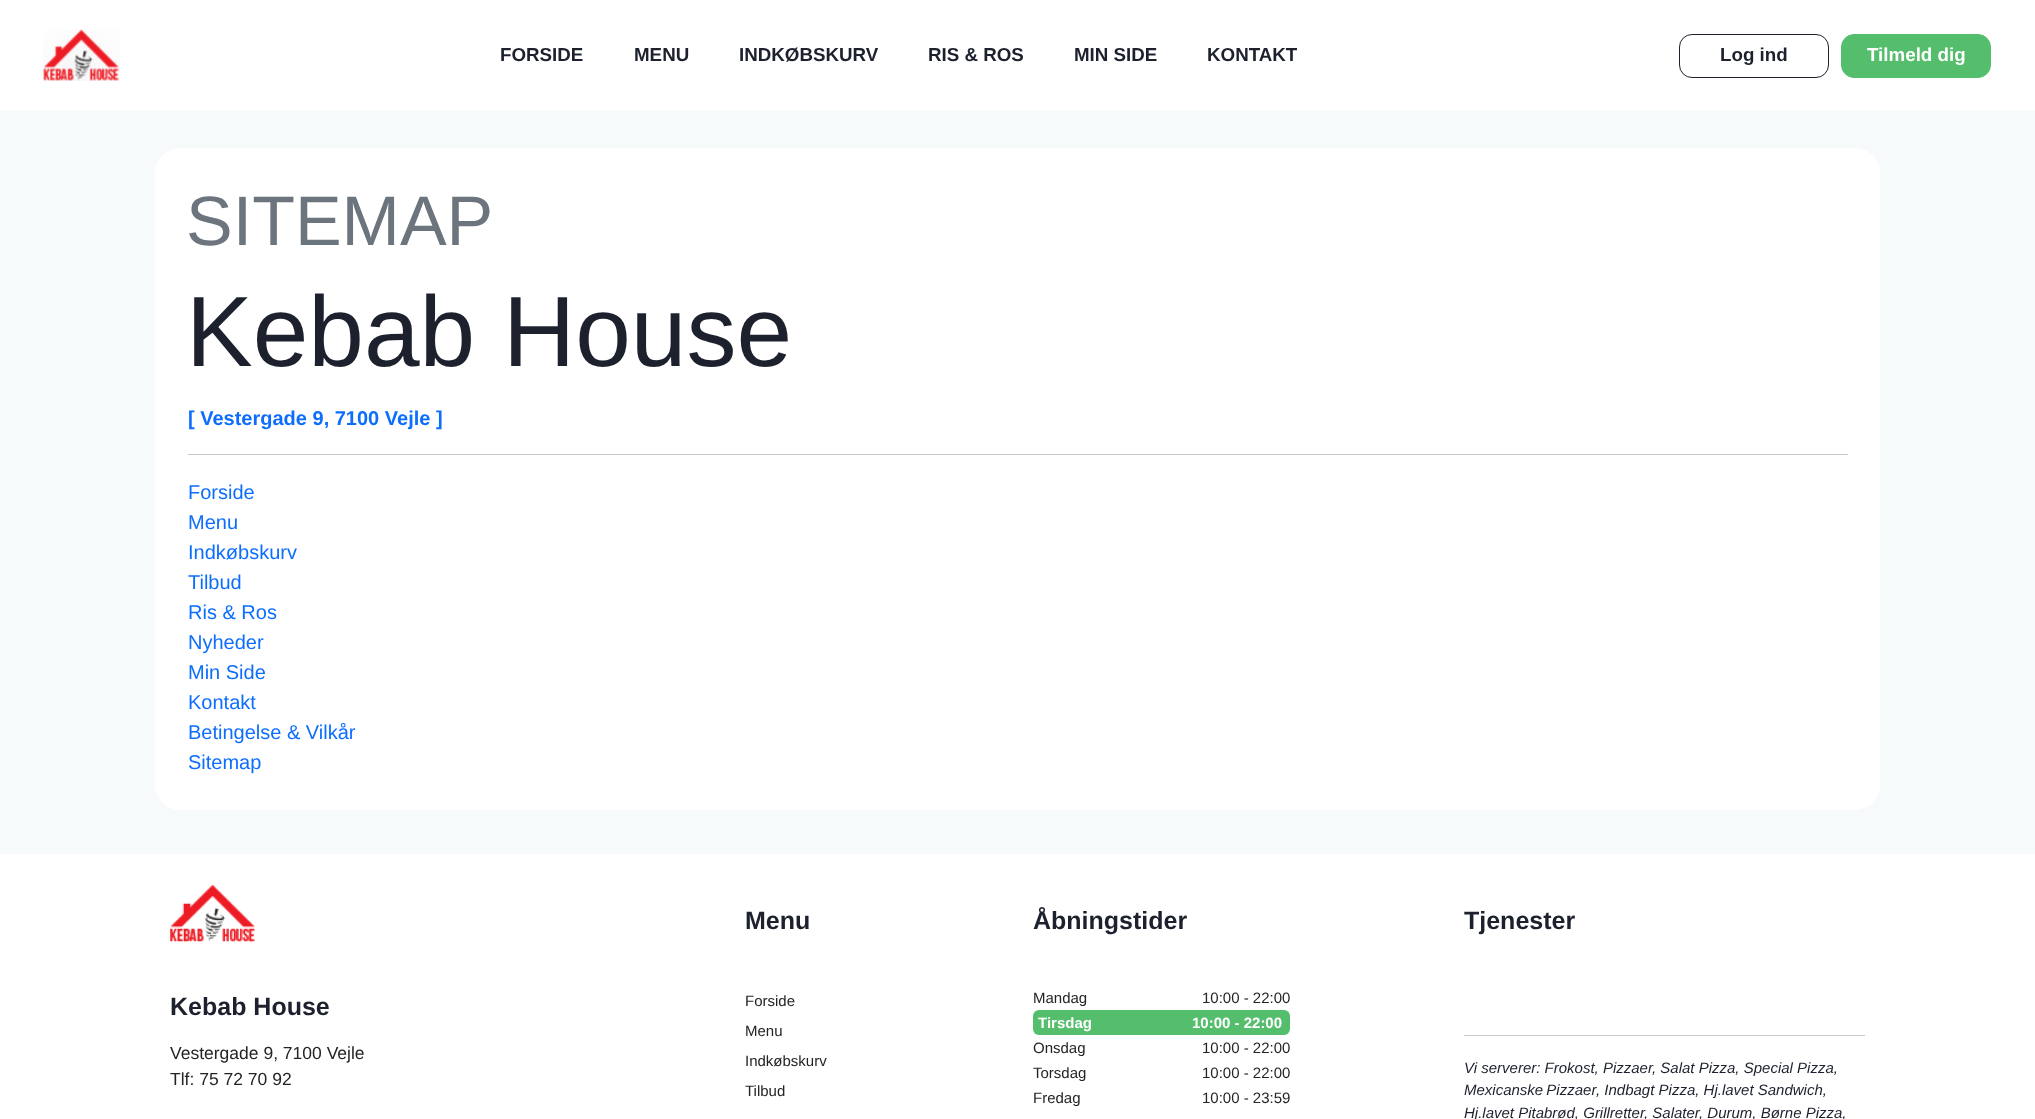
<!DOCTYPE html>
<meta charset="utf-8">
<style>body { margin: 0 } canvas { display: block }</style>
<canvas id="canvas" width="2035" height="1119"></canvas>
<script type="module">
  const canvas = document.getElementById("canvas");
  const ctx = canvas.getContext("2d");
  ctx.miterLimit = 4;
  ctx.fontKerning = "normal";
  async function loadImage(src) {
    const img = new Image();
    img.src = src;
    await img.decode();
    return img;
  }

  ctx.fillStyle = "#f7fafb";
  ctx.fillRect(0, 0, 2035, 1119);
  ctx.fillStyle = "#ffffff";
  ctx.fillRect(0, 0, 2035, 110);
  ctx.drawImage(await loadImage("img1.png"), 43, 29, 77, 52);
  ctx.font = "bold 18.75px Liberation Sans";
  ctx.fillStyle = "#1c212d";
  ctx.fillText("FORSIDE", 500, 61);
  ctx.fillText("MENU", 634, 61);
  ctx.fillText("INDKØBSKURV", 739, 61);
  ctx.fillText("RIS & ROS", 928, 61);
  ctx.fillText("MIN SIDE", 1074, 61);
  ctx.fillText("KONTAKT", 1207, 61);
  ctx.beginPath();
  ctx.roundRect(1679.5, 34.5, 149, 43, 12.5);
  ctx.strokeStyle = "#1c212d";
  ctx.stroke();
  ctx.fillText("Log ind", 1720, 61);
  ctx.fillStyle = "#55be6d";
  ctx.beginPath();
  ctx.roundRect(1841.5, 34.5, 149, 43, 12.5);
  ctx.fill();
  ctx.strokeStyle = "#55be6d";
  ctx.stroke();
  ctx.fillStyle = "#ffffff";
  ctx.fillText("Tilmeld dig", 1867, 61);
  ctx.beginPath();
  ctx.roundRect(155, 148, 1725, 662, 25);
  ctx.fill();
  ctx.font = "70px Liberation Sans";
  ctx.fillStyle = "#6c757d";
  ctx.fillText("SITEMAP", 186, 245);
  ctx.font = "100px Liberation Sans";
  ctx.fillStyle = "#1c212d";
  ctx.fillText("Kebab House", 186, 366);
  ctx.font = "bold 20px Liberation Sans";
  ctx.fillStyle = "#0d6efd";
  ctx.fillText("[ Vestergade 9, 7100 Vejle ]", 188, 425);
  ctx.fillStyle = "#c8c9ca";
  ctx.fillRect(188, 454, 1660, 1);
  ctx.font = "20px Liberation Sans";
  ctx.fillStyle = "#0d6efd";
  ctx.fillText("Forside", 188, 499);
  ctx.fillText("Menu", 188, 529);
  ctx.fillText("Indkøbskurv", 188, 559);
  ctx.fillText("Tilbud", 188, 589);
  ctx.fillText("Ris & Ros", 188, 619);
  ctx.fillText("Nyheder", 188, 649);
  ctx.fillText("Min Side", 188, 679);
  ctx.fillText("Kontakt", 188, 709);
  ctx.fillText("Betingelse & Vilkår", 188, 739);
  ctx.fillText("Sitemap", 188, 769);
  ctx.fillStyle = "#ffffff";
  ctx.fillRect(0, 854, 2035, 265);
  ctx.drawImage(await loadImage("img2.png"), 170, 885, 85, 57);
  ctx.font = "bold 25px Liberation Sans";
  ctx.fillStyle = "#1c212d";
  ctx.fillText("Kebab House", 170, 1015);
  ctx.font = "17.5px Liberation Sans";
  ctx.fillStyle = "#242424";
  ctx.fillText("Vestergade 9, 7100 Vejle", 170, 1059);
  ctx.fillText("Tlf: 75 72 70 92", 170, 1085);
  ctx.font = "bold 25px Liberation Sans";
  ctx.fillStyle = "#1c212d";
  ctx.fillText("Menu", 745, 929);
  ctx.font = "15px Liberation Sans";
  ctx.fillStyle = "#242424";
  ctx.fillText("Forside", 745, 1006);
  ctx.fillText("Menu", 745, 1036);
  ctx.fillText("Indkøbskurv", 745, 1066);
  ctx.fillText("Tilbud", 745, 1096);
  ctx.font = "bold 25px Liberation Sans";
  ctx.fillStyle = "#1c212d";
  ctx.fillText("Åbningstider", 1033, 929);
  ctx.font = "15px Liberation Sans";
  ctx.fillStyle = "#242424";
  ctx.fillText("Mandag", 1033, 1003);
  ctx.fillText("10:00 - 22:00", 1202, 1003);
  ctx.fillStyle = "#55be6d";
  ctx.beginPath();
  ctx.roundRect(1033, 1010, 257, 25, 6);
  ctx.fill();
  ctx.beginPath();
  ctx.roundRect(1035, 1010, 253, 25, 6);
  ctx.fill();
  ctx.font = "bold 15px Liberation Sans";
  ctx.fillStyle = "#ffffff";
  ctx.fillText("Tirsdag", 1038, 1028);
  ctx.fillText("10:00 - 22:00", 1192, 1028);
  ctx.font = "15px Liberation Sans";
  ctx.fillStyle = "#242424";
  ctx.fillText("Onsdag", 1033, 1053);
  ctx.fillText("10:00 - 22:00", 1202, 1053);
  ctx.fillText("Torsdag", 1033, 1078);
  ctx.fillText("10:00 - 22:00", 1202, 1078);
  ctx.fillText("Fredag", 1033, 1103);
  ctx.fillText("10:00 - 23:59", 1202, 1103);
  ctx.font = "bold 25px Liberation Sans";
  ctx.fillStyle = "#1c212d";
  ctx.fillText("Tjenester", 1464, 929);
  ctx.fillStyle = "#c8c9ca";
  ctx.fillRect(1464, 1035, 401, 1);
  ctx.font = "italic 15px Liberation Sans";
  ctx.fillStyle = "#1c212d";
  ctx.fillText("Vi serverer: Frokost, Pizzaer", 1464, 1073);
  ctx.fillText(", Salat Pizza, Special Pizza,", 1652, 1073);
  ctx.wordSpacing = "-1px";
  ctx.fillText("Mexicanske Pizzaer", 1464, 1095);
  ctx.wordSpacing = "0px";
  ctx.fillText(", Indbagt Pizza, Hj.lavet Sandwich,", 1596, 1095);
  ctx.fillText("Hj.lavet Pitabrød, Grillretter", 1464, 1118);
  ctx.fillText(", Salater", 1644, 1118);
  ctx.fillText(", Durum, Børne Pizza,", 1699, 1118);
</script>
